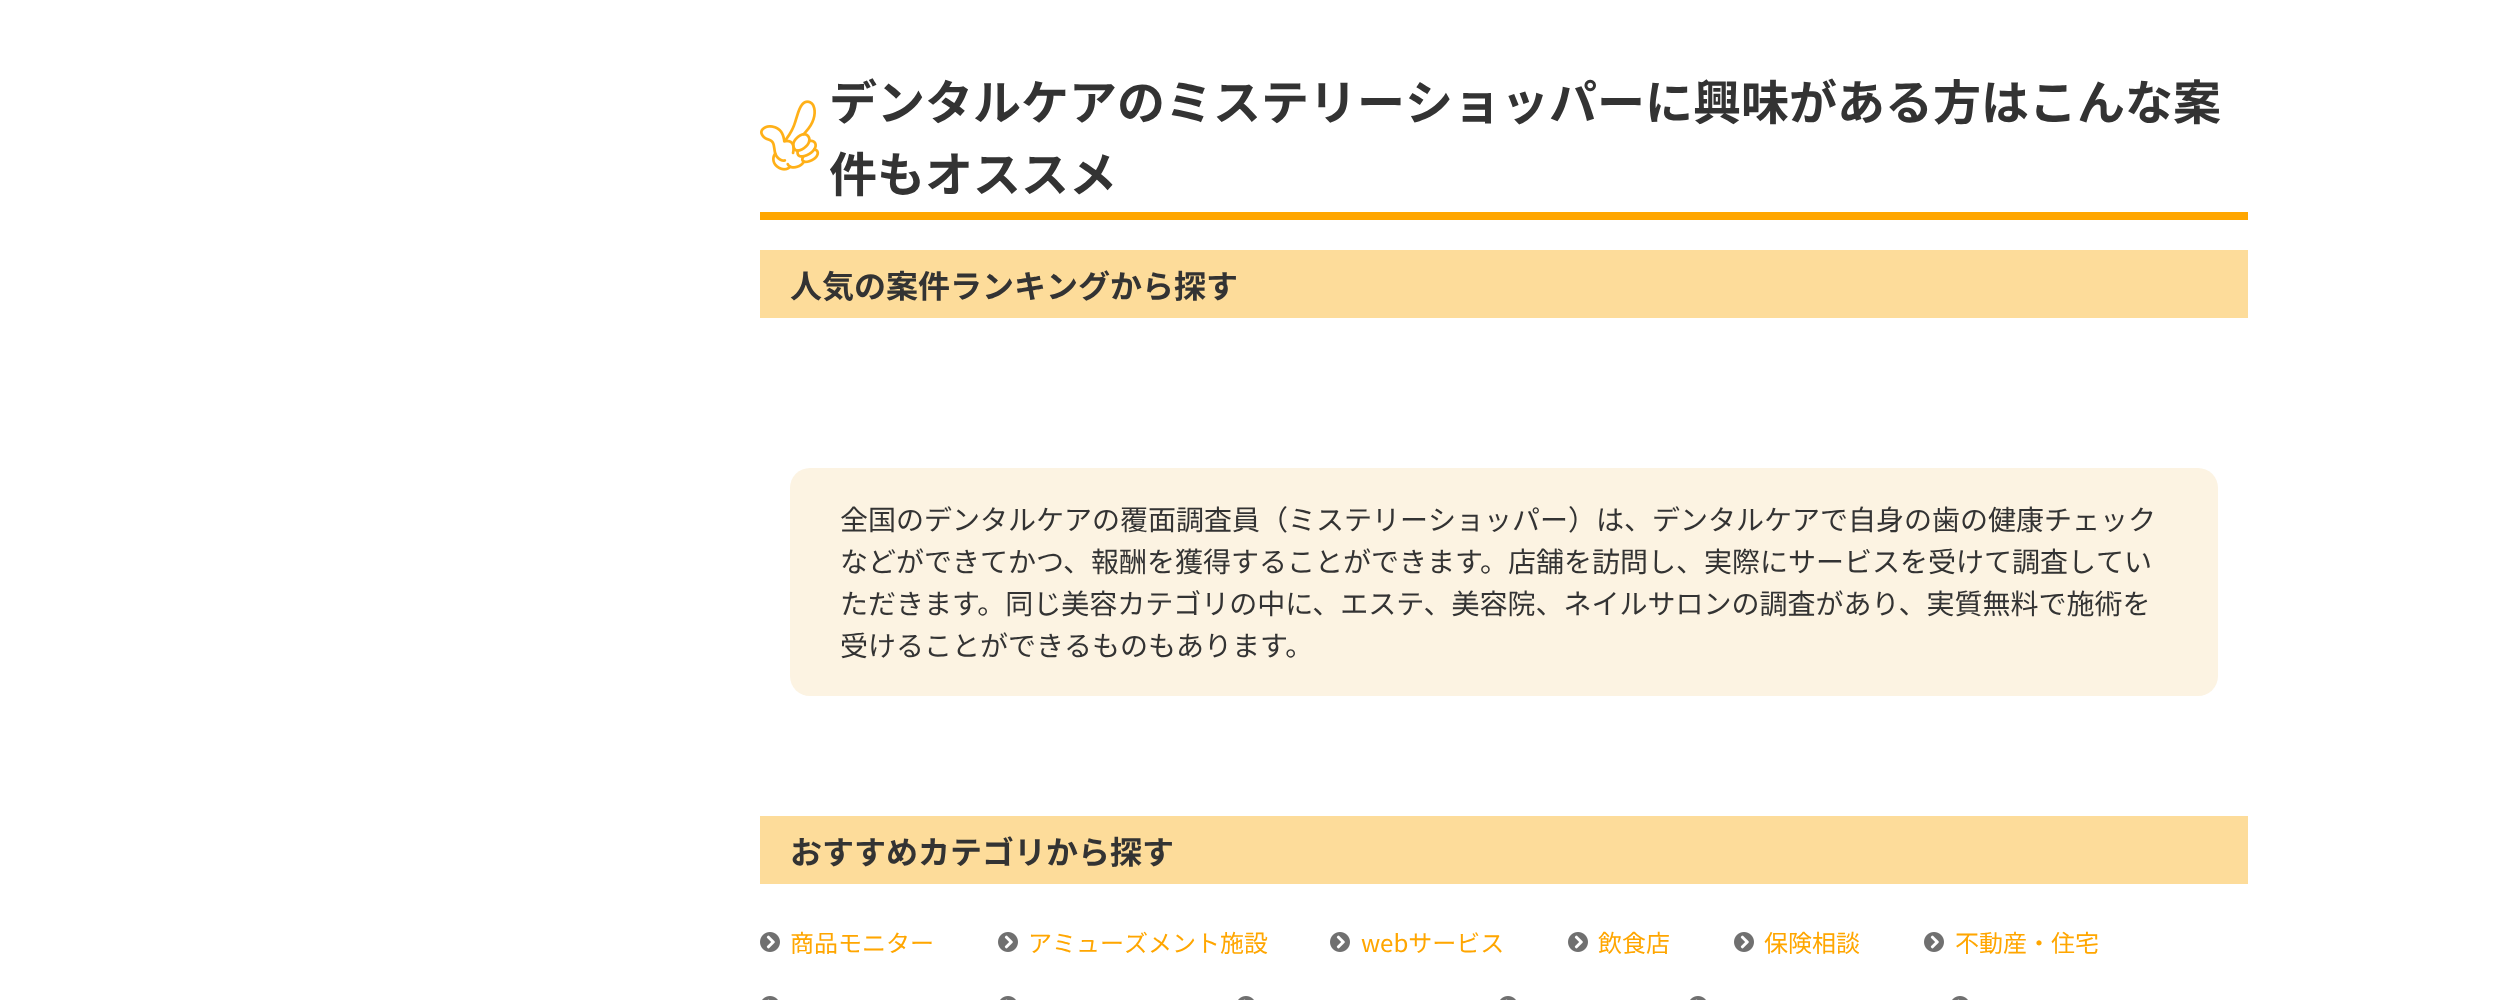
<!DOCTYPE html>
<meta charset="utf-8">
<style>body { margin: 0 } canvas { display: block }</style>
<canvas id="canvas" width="2495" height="1000"></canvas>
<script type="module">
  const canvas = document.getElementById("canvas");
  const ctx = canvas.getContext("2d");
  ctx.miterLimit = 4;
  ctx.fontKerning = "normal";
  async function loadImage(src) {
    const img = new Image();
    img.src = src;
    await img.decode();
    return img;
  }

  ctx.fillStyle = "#ffffff";
  ctx.fillRect(0, 0, 2495, 1000);
  ctx.fillStyle = "#ffa600";
  ctx.fillRect(760, 212, 1488, 8);
  ctx.drawImage(await loadImage("img1.png"), 760, 100, 60, 71);
  ctx.font = "100 48px Noto Sans JP";
  ctx.fillStyle = "#333333";
  ctx.fillText("デンタルケアのミステリーショッパーに興味がある方はこんな案", 829, 120);
  ctx.fillText("件もオススメ", 829, 192);
  ctx.fillStyle = "#fddc9a";
  ctx.fillRect(760, 250, 1488, 68);
  ctx.font = "100 32px Noto Sans JP";
  ctx.fillStyle = "#333333";
  ctx.fillText("人気の案件ランキングから探す", 790, 298);
  ctx.fillStyle = "#fcf3e2";
  ctx.beginPath();
  ctx.roundRect(790, 468, 1428, 228, 20);
  ctx.fill();
  ctx.font = "100 28px 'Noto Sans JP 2'";
  ctx.fillStyle = "#333333";
  ctx.fillText("全国のデンタルケアの覆面調査員（ミステリーショッパー）は、デンタルケアで自身の歯の健康チェック", 840, 530);
  ctx.fillText("などができてかつ、報酬を獲得することができます。店舗を訪問し、実際にサービスを受けて調査してい", 840, 572);
  ctx.fillText("ただきます。同じ美容カテゴリの中に、エステ、美容院、ネイルサロンの調査があり、実質無料で施術を", 840, 614);
  ctx.fillText("受けることができるものもあります。", 840, 656);
  ctx.fillStyle = "#fddc9a";
  ctx.fillRect(760, 816, 1488, 68);
  ctx.font = "100 32px Noto Sans JP";
  ctx.fillStyle = "#333333";
  ctx.fillText("おすすめカテゴリから探す", 790, 864);
  ctx.drawImage(await loadImage("img2.png"), 760, 932, 20, 20);
  ctx.font = "100 24px 'Noto Sans JP 2'";
  ctx.fillStyle = "#ffa600";
  ctx.fillText("商品モニター", 790, 952);
  ctx.drawImage(await loadImage("img2.png"), 998, 932, 20, 20);
  ctx.fillText("アミューズメント施設", 1028, 952);
  ctx.drawImage(await loadImage("img2.png"), 1330, 932, 20, 20);
  ctx.fillText("webサービス", 1361, 952);
  ctx.drawImage(await loadImage("img2.png"), 1568, 932, 20, 20);
  ctx.fillText("飲食店", 1598, 952);
  ctx.drawImage(await loadImage("img2.png"), 1734, 932, 20, 20);
  ctx.fillText("保険相談", 1764, 952);
  ctx.drawImage(await loadImage("img2.png"), 1924, 932, 20, 20);
  ctx.fillText("不動産・住宅", 1955, 952);
  ctx.drawImage(await loadImage("img3.png"), 762, 996, 16, 4);
  ctx.drawImage(await loadImage("img3.png"), 1000, 996, 16, 4);
  ctx.drawImage(await loadImage("img3.png"), 1238, 996, 16, 4);
  ctx.drawImage(await loadImage("img3.png"), 1500, 996, 16, 4);
  ctx.drawImage(await loadImage("img3.png"), 1690, 996, 16, 4);
  ctx.drawImage(await loadImage("img3.png"), 1952, 996, 16, 4);
</script>
